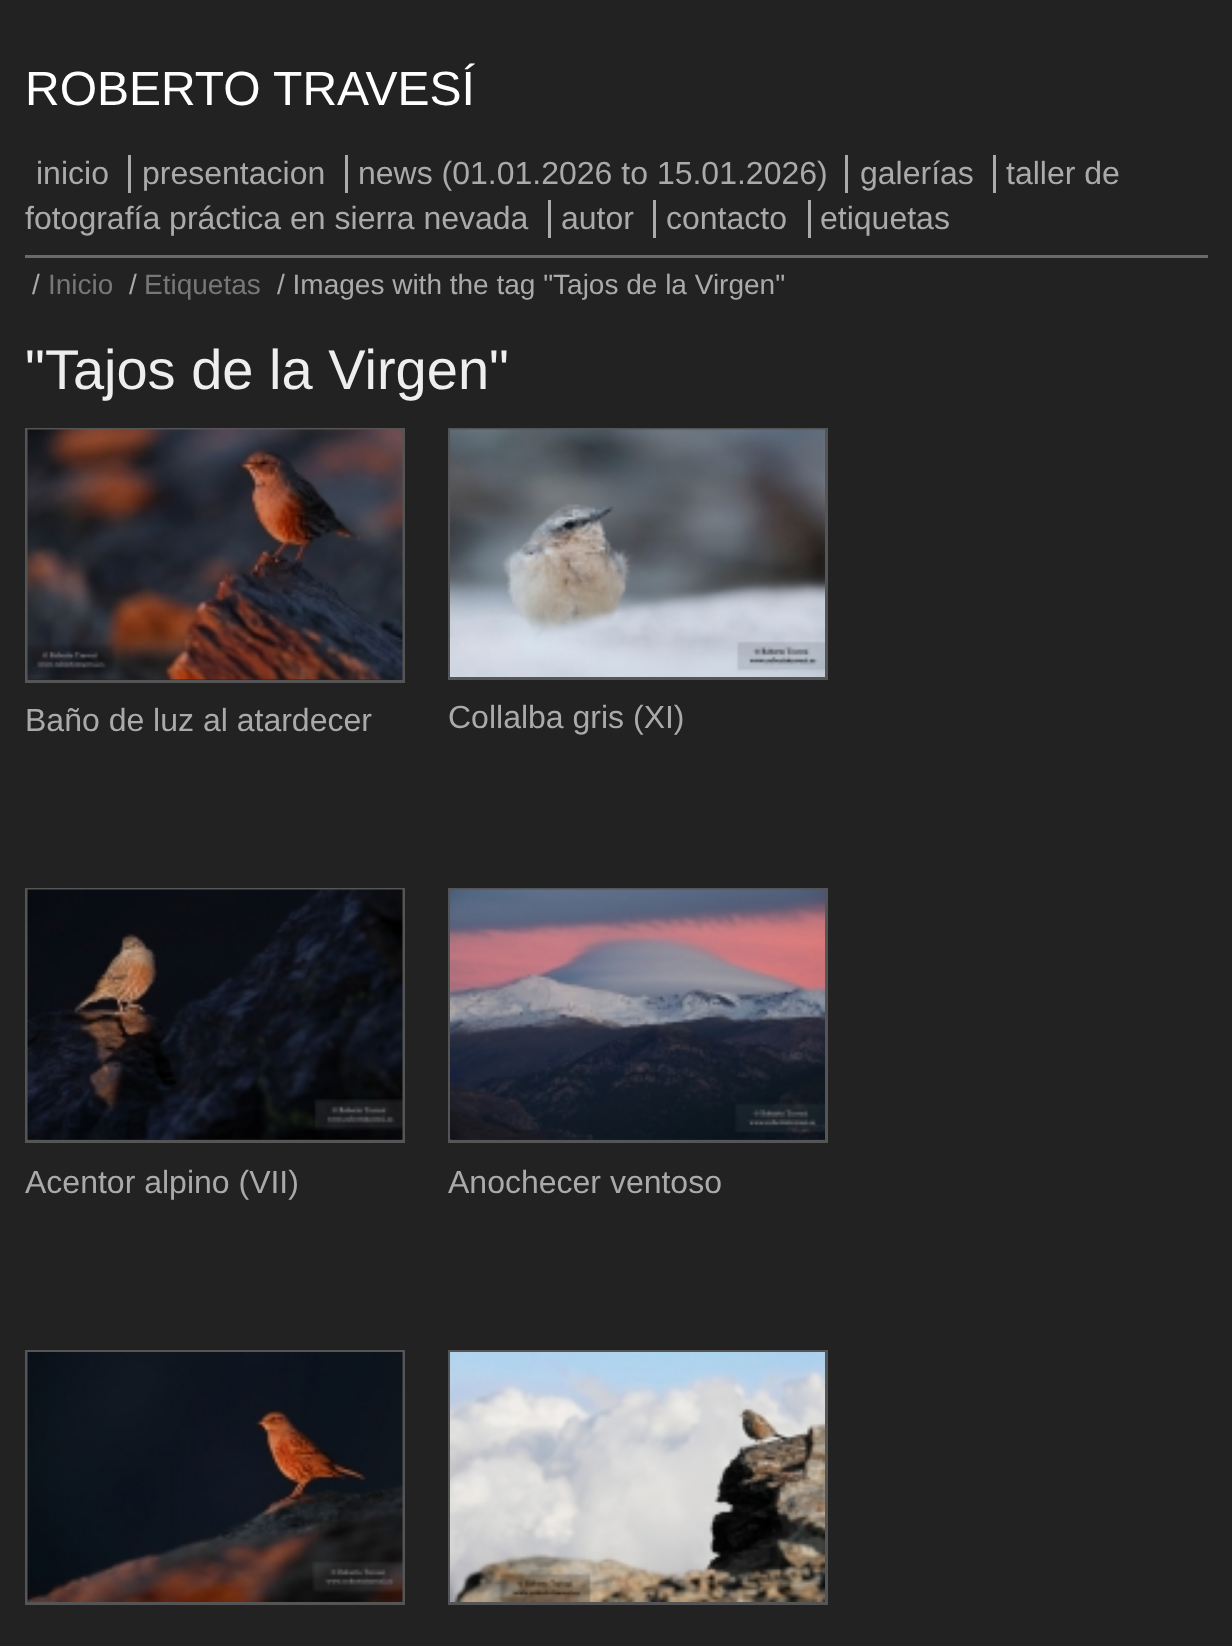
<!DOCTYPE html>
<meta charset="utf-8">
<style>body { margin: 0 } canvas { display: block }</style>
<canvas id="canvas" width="1232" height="1646"></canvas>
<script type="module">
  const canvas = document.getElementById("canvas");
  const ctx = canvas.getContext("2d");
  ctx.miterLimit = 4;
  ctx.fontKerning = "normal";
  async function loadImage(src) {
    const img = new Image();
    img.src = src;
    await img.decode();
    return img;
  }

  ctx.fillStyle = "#222222";
  ctx.fillRect(0, 0, 1232, 1646);
  ctx.fillStyle = "#6a6a6a";
  ctx.fillRect(25, 255, 1183, 3);
  ctx.font = "48px Liberation Sans";
  ctx.fillStyle = "#ffffff";
  ctx.fillText("ROBERTO TRAVESÍ", 25, 105);
  ctx.font = "32px Liberation Sans";
  ctx.fillStyle = "#aaaaaa";
  ctx.fillText("inicio", 36, 184);
  ctx.fillText("presentacion", 142, 184);
  ctx.fillRect(128, 155, 3, 38);
  ctx.fillText("news (01.01.2026 to 15.01.2026)", 358, 184);
  ctx.fillRect(345, 155, 3, 38);
  ctx.fillText("galerías", 860, 184);
  ctx.fillRect(845, 155, 3, 38);
  ctx.fillText("taller de", 1006, 184);
  ctx.fillRect(993, 155, 3, 38);
  ctx.fillText("fotografía práctica en sierra nevada", 25, 229);
  ctx.fillText("autor", 561, 229);
  ctx.fillRect(548, 200, 3, 38);
  ctx.fillText("contacto", 666, 229);
  ctx.fillRect(653, 200, 3, 38);
  ctx.fillText("etiquetas", 820, 229);
  ctx.fillRect(808, 200, 3, 38);
  ctx.font = "28px Liberation Sans";
  ctx.fillText("/", 32, 294);
  ctx.fillStyle = "#777777";
  ctx.fillText("Inicio", 48, 294);
  ctx.fillStyle = "#aaaaaa";
  ctx.fillText("/", 129, 294);
  ctx.fillStyle = "#777777";
  ctx.fillText("Etiquetas", 144, 294);
  ctx.fillStyle = "#aaaaaa";
  ctx.fillText("/ Images with the tag \"Tajos de la Virgen\"", 277, 294);
  ctx.font = "56px Liberation Sans";
  ctx.fillStyle = "#eeeeee";
  ctx.fillText("\"Tajos de la Virgen\"", 25, 389);
  ctx.strokeStyle = "#555555";
  ctx.lineWidth = 3;
  ctx.strokeRect(26.5, 429.5, 377, 252);
  ctx.drawImage(await loadImage("img1.png"), 27, 429, 376, 251);
  ctx.font = "32px Liberation Sans";
  ctx.fillStyle = "#aaaaaa";
  ctx.fillText("Baño de luz al atardecer", 25, 731);
  ctx.strokeRect(449.5, 429.5, 377, 249);
  ctx.drawImage(await loadImage("img2.png"), 450, 429, 375, 248);
  ctx.fillText("Collalba gris (XI)", 448, 728);
  ctx.strokeRect(26.5, 889.5, 377, 252);
  ctx.drawImage(await loadImage("img3.png"), 27, 889, 376, 251);
  ctx.fillText("Acentor alpino (VII)", 25, 1193);
  ctx.strokeRect(449.5, 889.5, 377, 252);
  ctx.drawImage(await loadImage("img4.png"), 450, 889, 375, 251);
  ctx.fillText("Anochecer ventoso", 448, 1193);
  ctx.strokeRect(26.5, 1351.5, 377, 252);
  ctx.drawImage(await loadImage("img5.png"), 27, 1352, 376, 250);
  ctx.strokeRect(449.5, 1351.5, 377, 252);
  ctx.drawImage(await loadImage("img6.png"), 450, 1352, 375, 250);
</script>
